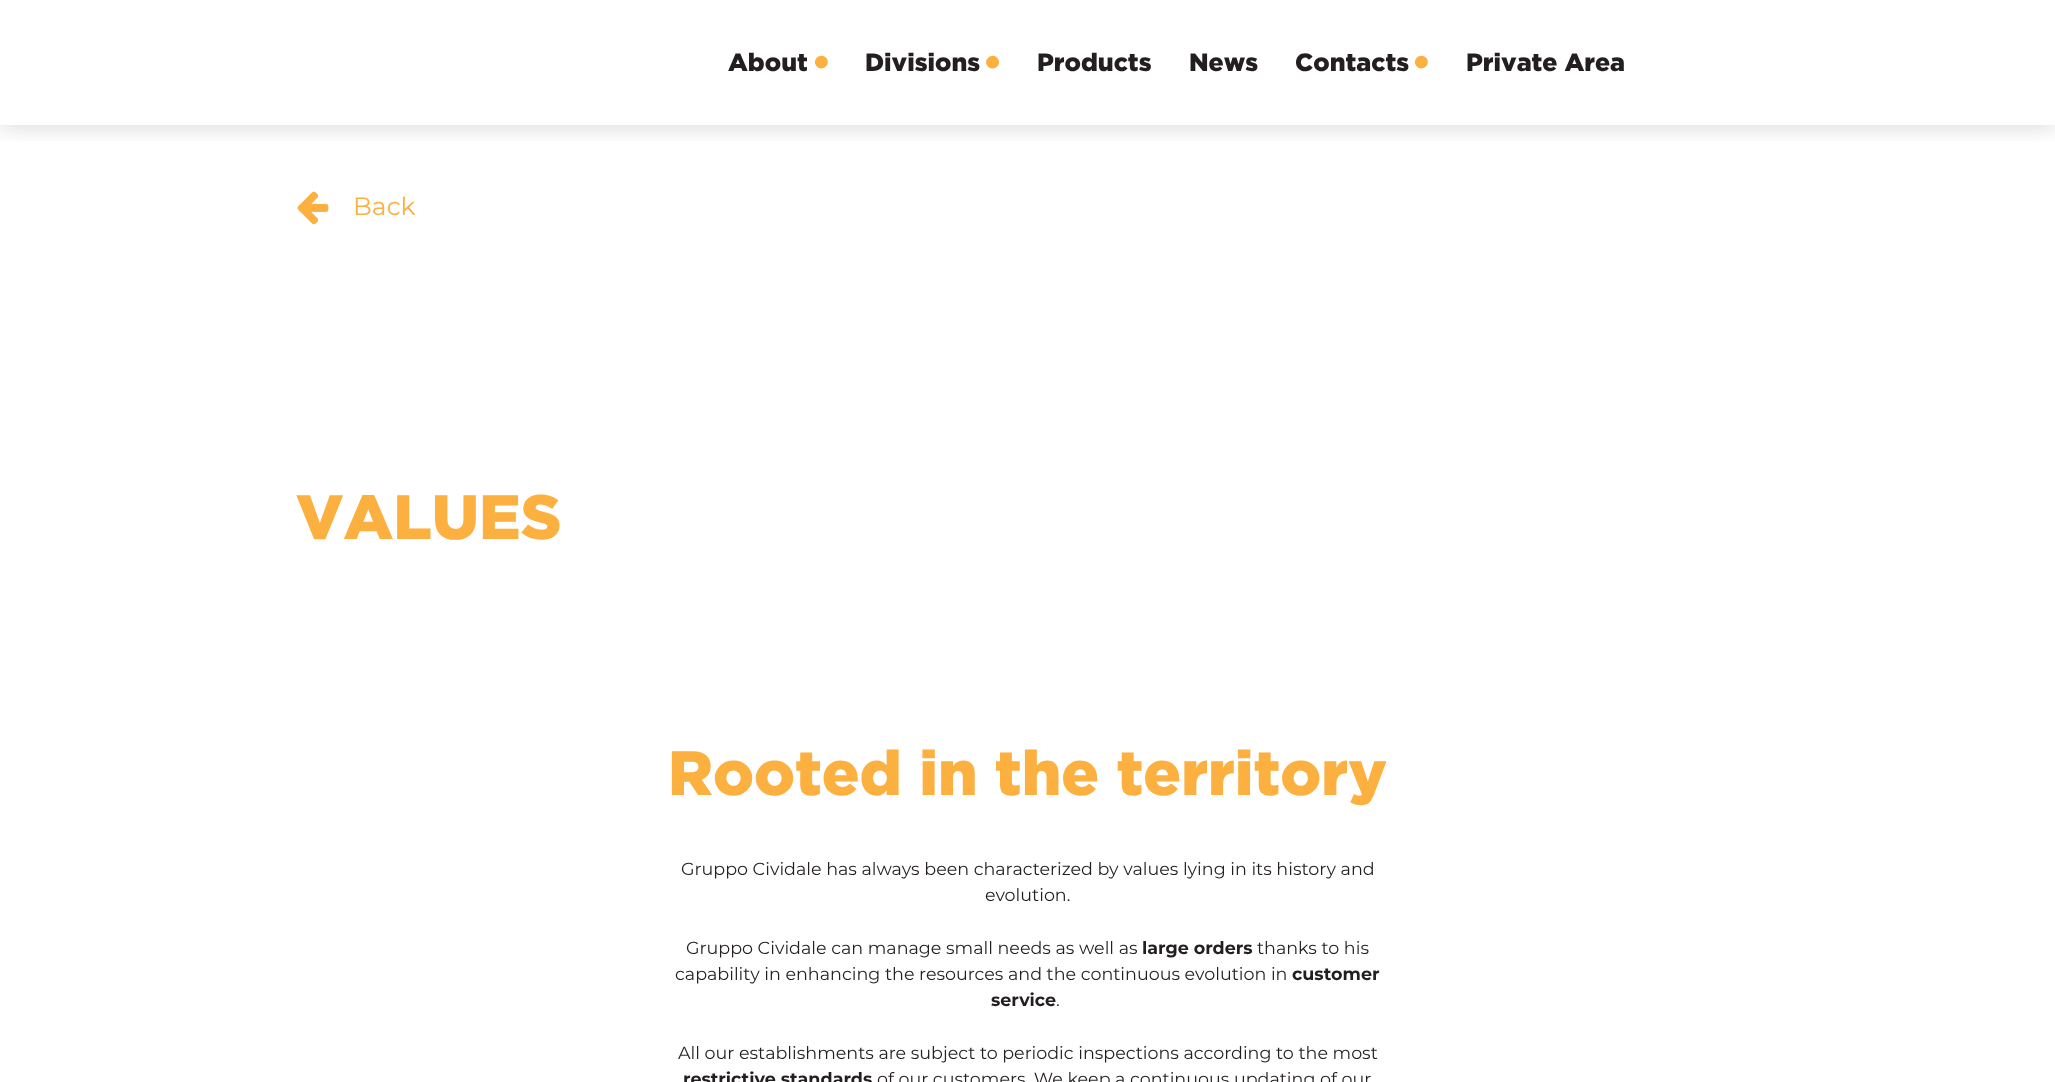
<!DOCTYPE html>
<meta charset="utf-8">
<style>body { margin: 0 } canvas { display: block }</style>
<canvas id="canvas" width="2055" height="1082"></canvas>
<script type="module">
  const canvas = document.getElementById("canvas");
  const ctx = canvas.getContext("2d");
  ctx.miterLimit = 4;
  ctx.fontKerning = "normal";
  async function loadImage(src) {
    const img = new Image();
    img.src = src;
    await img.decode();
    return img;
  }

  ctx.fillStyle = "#ffffff";
  ctx.fillRect(0, 0, 2055, 1082);
  ctx.save();
  ctx.beginPath();
  ctx.rect(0, 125, 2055, 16);
  ctx.clip();
  ctx.fillStyle = "rgba(35, 31, 32, 0.2)";
  ctx.filter = "blur(12.5px)";
  ctx.beginPath();
  ctx.rect(0, 0, 2055, 125);
  ctx.fill();
  ctx.filter = "none";
  ctx.restore();
  ctx.font = "900 25px Gotham";
  ctx.fillStyle = "#231f20";
  ctx.fillText("About", 728, 71);
  ctx.fillStyle = "#fbb03f";
  ctx.beginPath();
  ctx.moveTo(827, 59);
  ctx.bezierCurveTo(831, 66, 820, 72.5, 816, 65.5);
  ctx.bezierCurveTo(811.5, 58, 822.5, 51.5, 827, 59);
  ctx.closePath();
  ctx.fill();
  ctx.fillStyle = "#231f20";
  ctx.fillText("Divisions", 865, 71);
  ctx.fillStyle = "#fbb03f";
  ctx.beginPath();
  ctx.moveTo(998, 59);
  ctx.bezierCurveTo(1002.5, 66, 991.5, 72.5, 987, 65.5);
  ctx.bezierCurveTo(983, 58, 994, 51.5, 998, 59);
  ctx.closePath();
  ctx.fill();
  ctx.fillStyle = "#231f20";
  ctx.fillText("Products", 1037, 71);
  ctx.fillText("News", 1189, 71);
  ctx.fillText("Contacts", 1295, 71);
  ctx.fillStyle = "#fbb03f";
  ctx.beginPath();
  ctx.moveTo(1427, 59);
  ctx.bezierCurveTo(1431, 66, 1420, 72.5, 1416, 65.5);
  ctx.bezierCurveTo(1411.5, 58, 1422.5, 51.5, 1427, 59);
  ctx.closePath();
  ctx.fill();
  ctx.fillStyle = "#231f20";
  ctx.fillText("Private Area", 1466, 71);
  ctx.drawImage(await loadImage("img1.png"), 297, 191, 32, 34);
  ctx.font = "25px Montserrat";
  ctx.fillStyle = "#fbb03f";
  ctx.fillText("Back", 353, 215);
  ctx.font = "900 62.5px Gotham";
  ctx.fillText("VALUES", 296, 539);
  ctx.fillText("Rooted in the territory", 668, 795);
  ctx.font = "17.5px Montserrat";
  ctx.fillStyle = "#231f20";
  ctx.fillText("Gruppo Cividale has always been characterized by values lying in its history and", 681, 875);
  ctx.fillText("evolution.", 985, 901);
  ctx.fillText("Gruppo Cividale can manage small needs as well as", 686, 954);
  ctx.font = "bold 17.5px Montserrat";
  ctx.fillText("large orders", 1142, 954);
  ctx.font = "17.5px Montserrat";
  ctx.fillText("thanks to his", 1257, 954);
  ctx.fillText("capability in enhancing the resources and the continuous evolution in", 675, 980);
  ctx.font = "bold 17.5px Montserrat";
  ctx.fillText("customer", 1292, 980);
  ctx.fillText("service", 991, 1006);
  ctx.font = "17.5px Montserrat";
  ctx.fillText(".", 1056, 1006);
  ctx.fillText("All our establishments are subject to periodic inspections according to the most", 678, 1059);
  ctx.font = "bold 17.5px Montserrat";
  ctx.fillText("restrictive standards", 683, 1085);
  ctx.font = "17.5px Montserrat";
  ctx.fillText("of our customers. We keep a continuous updating of our", 877, 1085);
</script>
